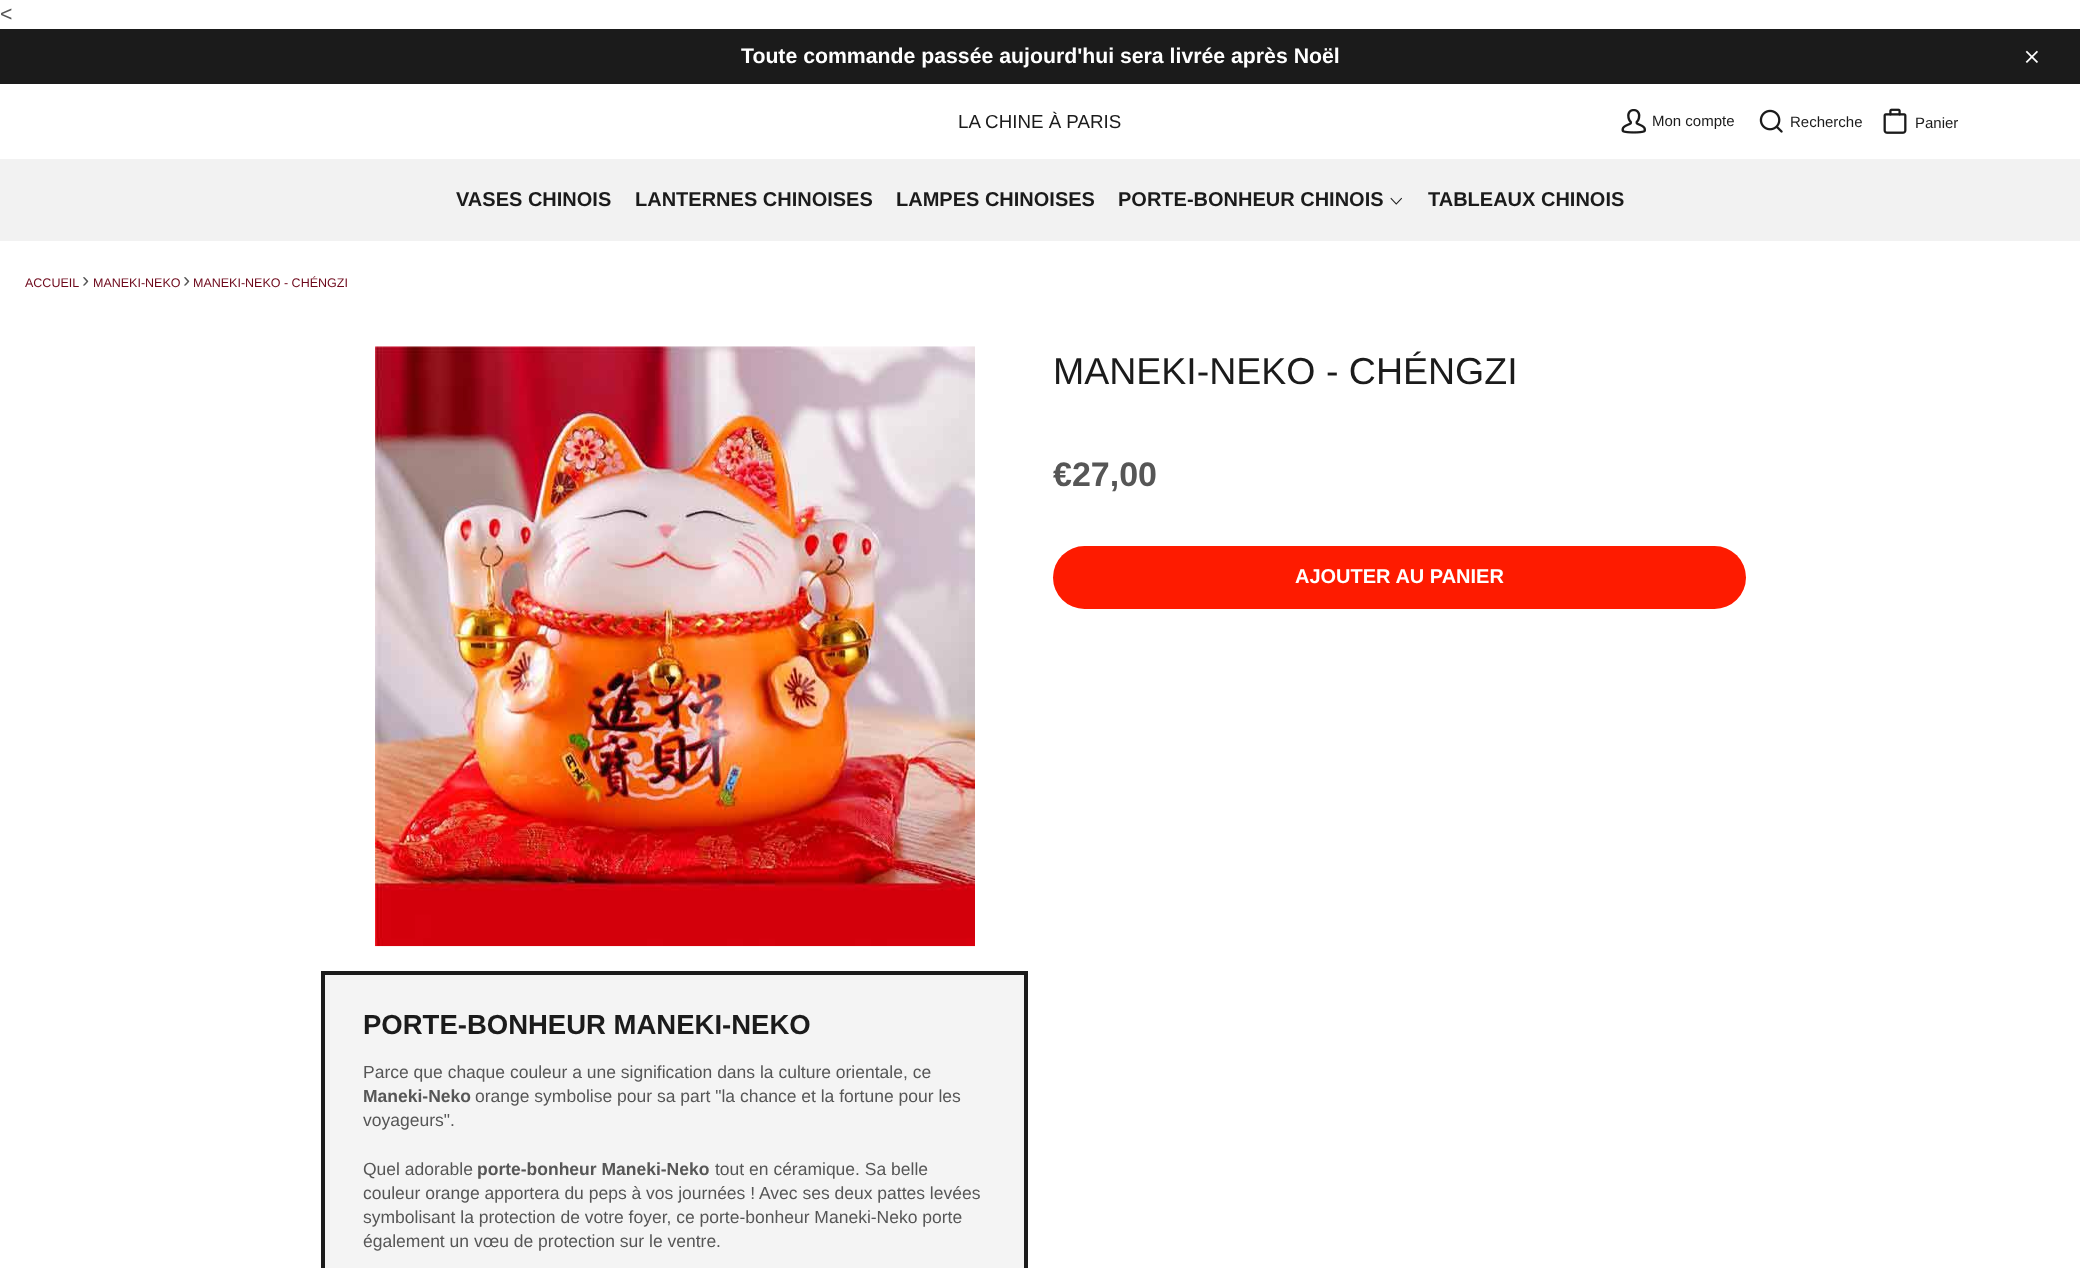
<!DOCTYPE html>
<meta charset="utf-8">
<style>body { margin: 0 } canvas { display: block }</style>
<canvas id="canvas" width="2080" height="1268"></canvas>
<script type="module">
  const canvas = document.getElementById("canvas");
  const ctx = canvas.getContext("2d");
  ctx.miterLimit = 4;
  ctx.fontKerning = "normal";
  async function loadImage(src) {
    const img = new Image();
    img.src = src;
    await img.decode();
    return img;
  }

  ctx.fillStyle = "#ffffff";
  ctx.fillRect(0, 0, 2080, 1268);
  ctx.font = "21.25px Liberation Sans";
  ctx.fillStyle = "#565656";
  ctx.fillText("<", 0, 21);
  ctx.fillStyle = "#1b1b1b";
  ctx.fillRect(0, 29, 2080, 55);
  ctx.font = "bold 21.25px Liberation Sans";
  ctx.fillStyle = "#ffffff";
  ctx.fillText("Toute commande passée aujourd'hui sera livrée après Noël", 741, 63);
  ctx.drawImage(await loadImage("img1.png"), 2025, 50, 13, 13);
  ctx.font = "18.75px Liberation Sans";
  ctx.fillStyle = "#1b1b1b";
  ctx.fillText("LA CHINE À PARIS", 958, 128);
  ctx.drawImage(await loadImage("img2.png"), 1621, 109, 25, 25);
  ctx.font = "15px Liberation Sans";
  ctx.fillText("Mon compte", 1652, 126);
  ctx.drawImage(await loadImage("img3.png"), 1759, 109, 24, 24);
  ctx.fillText("Recherche", 1790, 127);
  ctx.drawImage(await loadImage("img4.png"), 1883, 108, 24, 26);
  ctx.fillText("Panier", 1915, 128);
  ctx.fillStyle = "#f2f2f2";
  ctx.fillRect(0, 159, 2080, 82);
  ctx.font = "bold 20px Liberation Sans";
  ctx.fillStyle = "#1b1b1b";
  ctx.fillText("VASES CHINOIS", 456, 206);
  ctx.fillText("LANTERNES CHINOISES", 635, 206);
  ctx.fillText("LAMPES CHINOISES", 896, 206);
  ctx.fillText("PORTE-BONHEUR CHINOIS", 1118, 206);
  ctx.drawImage(await loadImage("img5.png"), 1390, 197, 12, 8);
  ctx.fillText("TABLEAUX CHINOIS", 1428, 206);
  ctx.font = "12.5px Liberation Sans";
  ctx.fillStyle = "#6d071a";
  ctx.fillText("ACCUEIL", 25, 287);
  ctx.font = "21.25px Liberation Sans";
  ctx.fillStyle = "#565656";
  ctx.fillText("›", 82, 287);
  ctx.font = "12.5px Liberation Sans";
  ctx.fillStyle = "#6d071a";
  ctx.fillText("MANEKI-NEKO", 93, 287);
  ctx.font = "21.25px Liberation Sans";
  ctx.fillStyle = "#565656";
  ctx.fillText("›", 183, 287);
  ctx.font = "12.5px Liberation Sans";
  ctx.fillStyle = "#6d071a";
  ctx.fillText("MANEKI-NEKO - CHÉNGZI", 193, 287);
  ctx.font = "37.5px Liberation Sans";
  ctx.fillStyle = "#1b1b1b";
  ctx.fillText("MANEKI-NEKO - CHÉNGZI", 1053, 384);
  ctx.font = "bold 34px Liberation Sans";
  ctx.fillStyle = "#565656";
  ctx.fillText("€27,00", 1053, 486);
  ctx.fillStyle = "#fe1b00";
  ctx.beginPath();
  ctx.roundRect(1053, 546, 693, 63, 31.5);
  ctx.fill();
  ctx.font = "bold 20px Liberation Sans";
  ctx.fillStyle = "#ffffff";
  ctx.fillText("AJOUTER AU PANIER", 1295, 583);
  ctx.drawImage(await loadImage("img6.png"), 375, 346, 600, 601);
  ctx.fillStyle = "#f4f4f4";
  ctx.beginPath();
  ctx.rect(323, 973, 703, 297);
  ctx.fill();
  ctx.strokeStyle = "#1b1b1b";
  ctx.lineWidth = 4;
  ctx.stroke();
  ctx.font = "bold 27.5px Liberation Sans";
  ctx.fillStyle = "#1b1b1b";
  ctx.fillText("PORTE-BONHEUR MANEKI-NEKO", 363, 1034);
  ctx.font = "17.5px Liberation Sans";
  ctx.fillStyle = "#565656";
  ctx.fillText("Parce que chaque couleur a une signification dans la culture orientale, ce", 363, 1078);
  ctx.font = "bold 17.5px Liberation Sans";
  ctx.fillText("Maneki-Neko", 363, 1102);
  ctx.font = "17.5px Liberation Sans";
  ctx.fillText("orange symbolise pour sa part \"la chance et la fortune pour les", 475, 1102);
  ctx.fillText("voyageurs\".", 363, 1126);
  ctx.fillText("Quel adorable", 363, 1175);
  ctx.font = "bold 17.5px Liberation Sans";
  ctx.fillText("porte-bonheur Maneki-Neko", 477, 1175);
  ctx.font = "17.5px Liberation Sans";
  ctx.fillText("tout en céramique. Sa belle", 715, 1175);
  ctx.fillText("couleur orange apportera du peps à vos journées ! Avec ses deux pattes levées", 363, 1199);
  ctx.fillText("symbolisant la protection de votre foyer, ce porte-bonheur Maneki-Neko porte", 363, 1223);
  ctx.fillText("également un vœu de protection sur le ventre.", 363, 1247);
</script>
